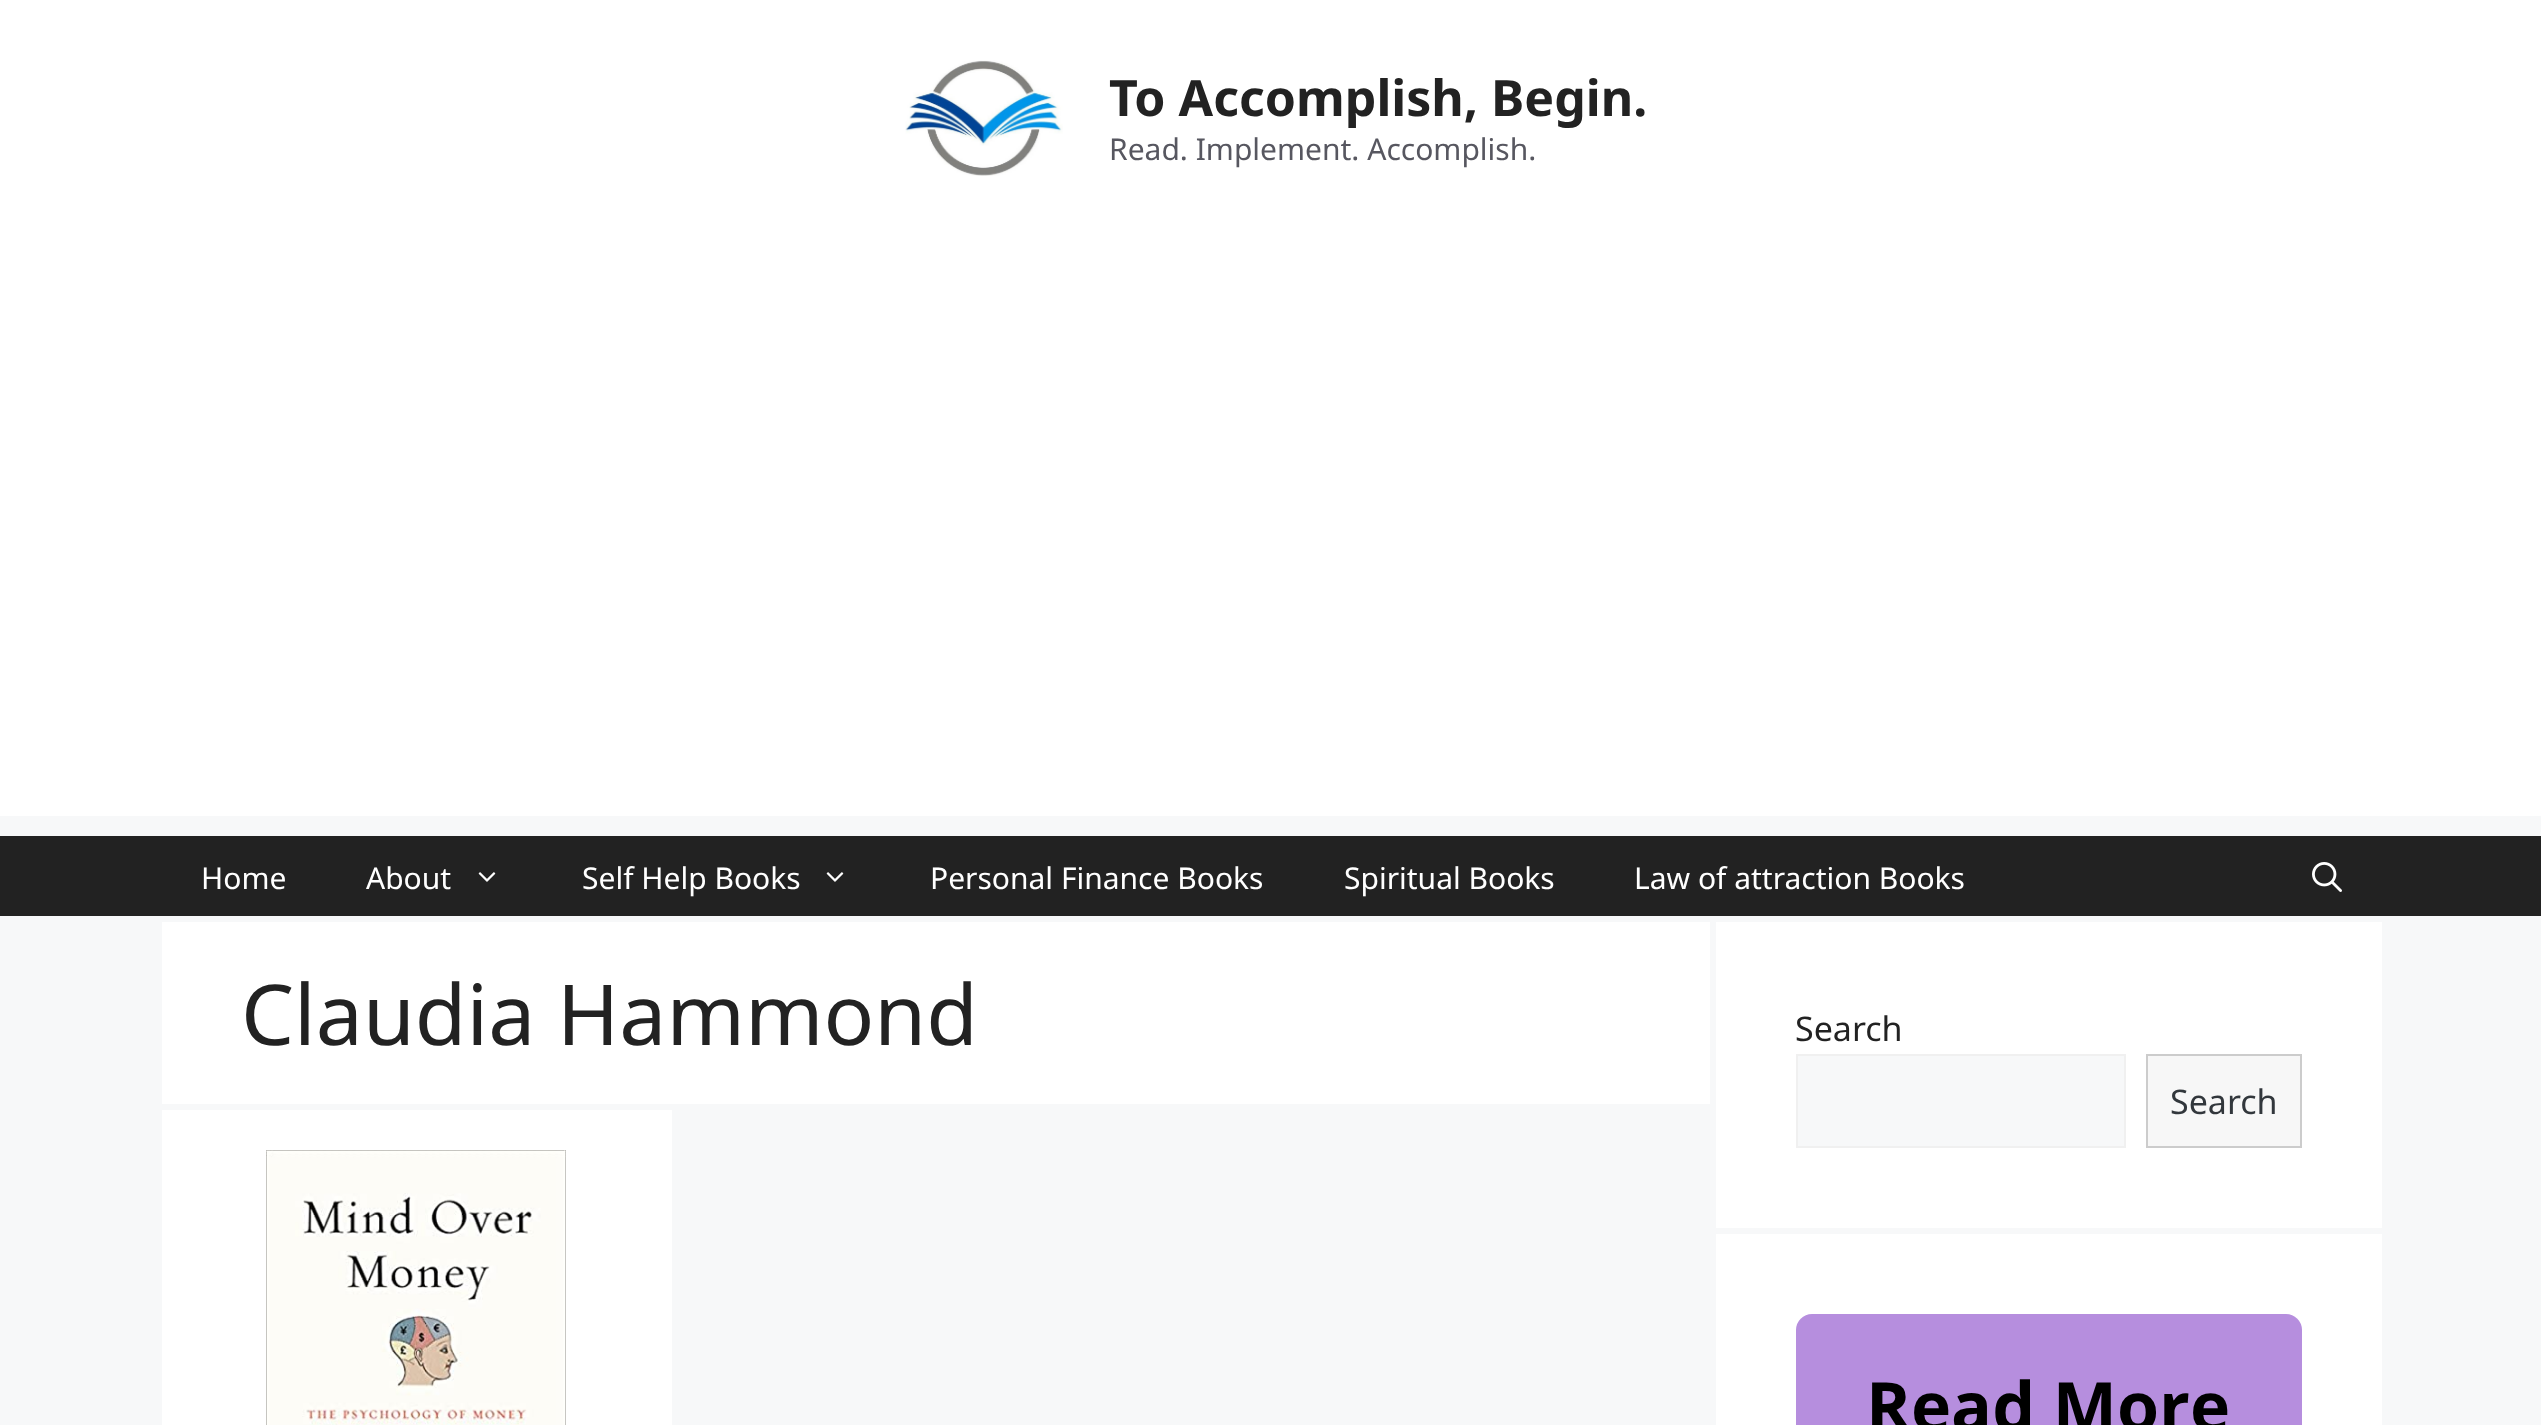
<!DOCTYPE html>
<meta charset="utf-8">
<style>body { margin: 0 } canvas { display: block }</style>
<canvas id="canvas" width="2541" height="1425"></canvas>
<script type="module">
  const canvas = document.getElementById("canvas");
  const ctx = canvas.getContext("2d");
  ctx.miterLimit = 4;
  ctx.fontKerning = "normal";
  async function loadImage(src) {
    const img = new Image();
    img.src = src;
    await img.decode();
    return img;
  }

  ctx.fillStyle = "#f7f8f9";
  ctx.fillRect(0, 0, 2541, 1425);
  ctx.fillStyle = "#ffffff";
  ctx.fillRect(0, 0, 2541, 816);
  ctx.drawImage(await loadImage("img1.png"), 905, 60, 158, 116);
  ctx.font = "bold 50px Noto Sans";
  ctx.fillStyle = "#222222";
  ctx.fillText("To Accomplish, Begin.", 1109, 116);
  ctx.font = "30px Noto Sans";
  ctx.fillStyle = "#575760";
  ctx.fillText("Read. Implement. Accomplish.", 1109, 160);
  ctx.fillStyle = "#222222";
  ctx.fillRect(0, 836, 2541, 80);
  ctx.fillStyle = "#ffffff";
  ctx.fillText("Home", 201, 889);
  ctx.fillText("About", 366, 889);
  ctx.drawImage(await loadImage("img2.png"), 478, 872, 18, 10);
  ctx.fillText("Self Help Books", 582, 889);
  ctx.drawImage(await loadImage("img2.png"), 826, 872, 18, 10);
  ctx.fillText("Personal Finance Books", 930, 889);
  ctx.fillText("Spiritual Books", 1344, 889);
  ctx.fillText("Law of attraction Books", 1634, 889);
  ctx.drawImage(await loadImage("img3.png"), 2312, 862, 30, 30);
  ctx.fillRect(162, 922, 1548, 182);
  ctx.font = "84px Noto Sans";
  ctx.fillStyle = "#222222";
  ctx.fillText("Claudia Hammond", 241, 1045);
  ctx.fillStyle = "#ffffff";
  ctx.fillRect(162, 1110, 510, 315);
  ctx.drawImage(await loadImage("img4.png"), 266, 1150, 300, 275);
  ctx.fillRect(1716, 922, 666, 306);
  ctx.font = "34px Noto Sans";
  ctx.fillStyle = "#222222";
  ctx.fillText("Search", 1795, 1041);
  ctx.fillStyle = "#f7f8f9";
  ctx.beginPath();
  ctx.rect(1797, 1055, 328, 92);
  ctx.fill();
  ctx.strokeStyle = "#f0f0f0";
  ctx.lineWidth = 2;
  ctx.stroke();
  ctx.fillStyle = "#f7f7f7";
  ctx.beginPath();
  ctx.rect(2147, 1055, 154, 92);
  ctx.fill();
  ctx.strokeStyle = "#cccccc";
  ctx.stroke();
  ctx.fillStyle = "#32373c";
  ctx.fillText("Search", 2170, 1114);
  ctx.fillStyle = "#ffffff";
  ctx.fillRect(1716, 1234, 666, 191);
  ctx.fillStyle = "#b68ede";
  ctx.beginPath();
  ctx.roundRect(1796, 1314, 506, 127, 16);
  ctx.fill();
  ctx.font = "bold 68px Open Sans";
  ctx.fillStyle = "#000000";
  ctx.fillText("Read More", 1866, 1431);
</script>
